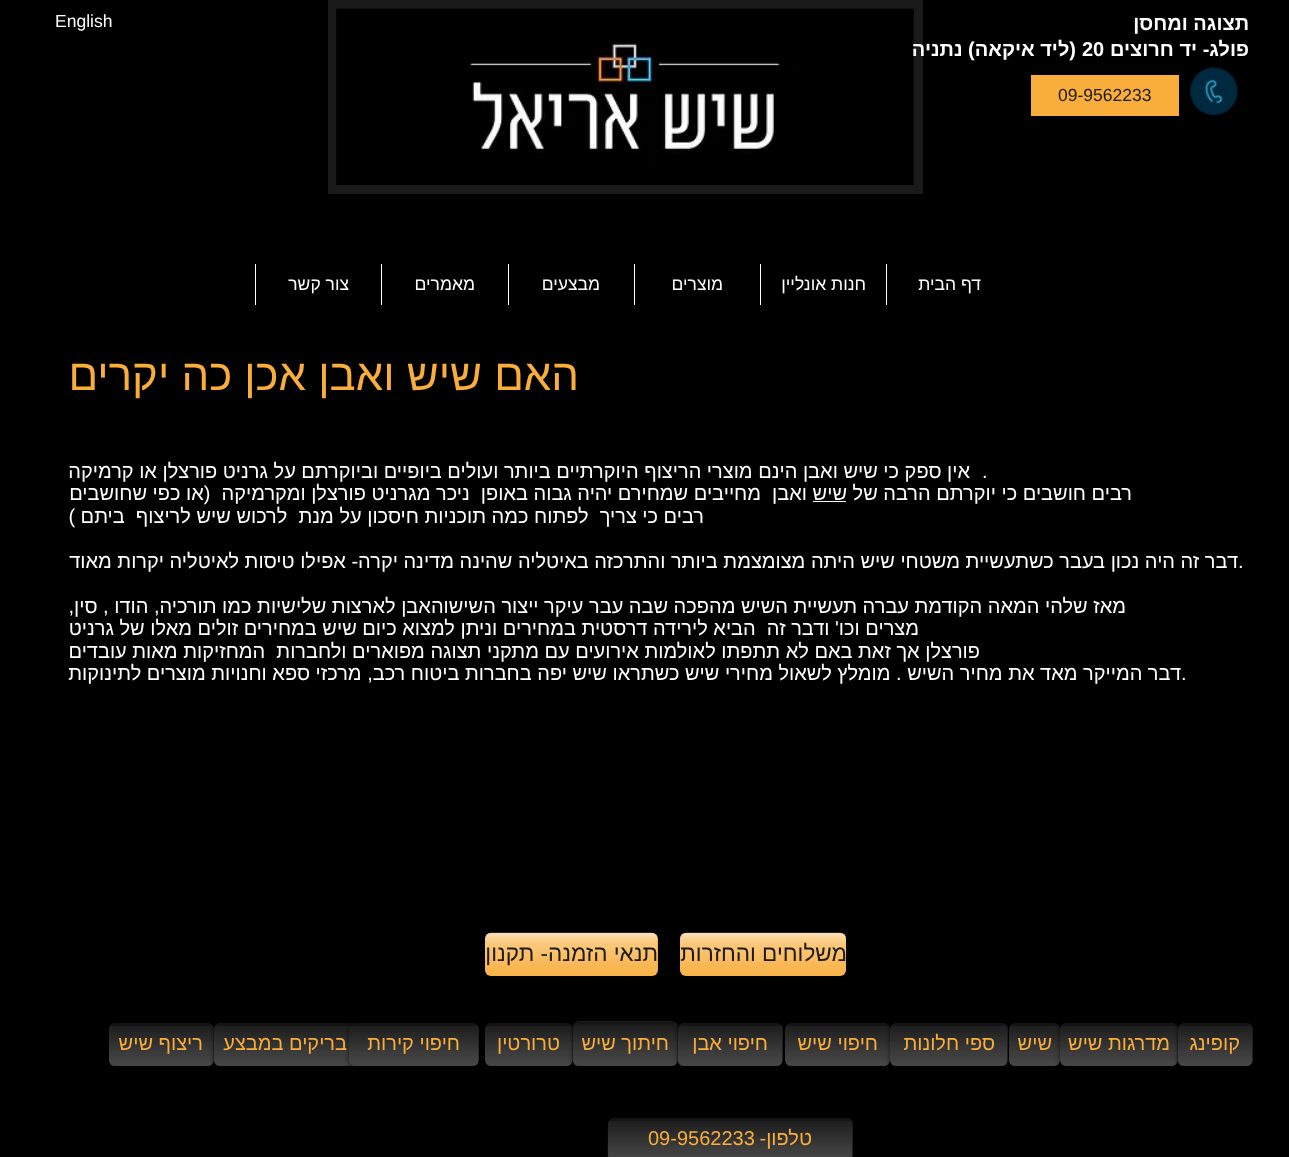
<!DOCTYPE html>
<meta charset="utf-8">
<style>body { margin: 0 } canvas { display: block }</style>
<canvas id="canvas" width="1289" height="1157"></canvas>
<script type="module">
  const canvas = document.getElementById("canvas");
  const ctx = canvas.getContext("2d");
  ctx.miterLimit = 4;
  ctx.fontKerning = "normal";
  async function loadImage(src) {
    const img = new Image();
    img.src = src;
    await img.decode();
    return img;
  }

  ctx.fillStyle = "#000000";
  ctx.fillRect(0, 0, 1289, 1157);
  ctx.direction = "rtl";
  ctx.font = "bold 20px Liberation Sans";
  ctx.fillStyle = "#ffffff";
  ctx.fillText("תצוגה ומחסן", 1249, 30);
  ctx.fillText("פולג- יד חרוצים", 1249, 56);
  ctx.direction = "ltr";
  ctx.fillText("20", 1082, 56);
  ctx.fillStyle = "#1a1a1a";
  ctx.fillRect(328, 0, 595, 194);
  ctx.drawImage(await loadImage("img1.png"), 336, 8, 578, 177);
  ctx.direction = "rtl";
  ctx.fillStyle = "#ffffff";
  ctx.fillText("(ליד איקאה) נתניה", 1076, 56);
  ctx.direction = "ltr";
  ctx.font = "17.5px Liberation Sans";
  ctx.fillText("English", 55, 27);
  ctx.drawImage(await loadImage("img2.png"), 1190, 67, 48, 49);
  ctx.fillStyle = "#f9ad3b";
  ctx.fillRect(1031, 75, 148, 41);
  ctx.fillStyle = "#1a1a1a";
  ctx.fillText("09-9562233", 1058, 101);
  ctx.fillStyle = "#ffffff";
  ctx.fillRect(886, 264, 1, 41);
  ctx.direction = "rtl";
  ctx.fillText("דף הבית", 981, 290);
  ctx.fillRect(760, 264, 1, 41);
  ctx.fillText("חנות אונליין", 866, 290);
  ctx.fillRect(634, 264, 1, 41);
  ctx.fillText("מוצרים", 723, 290);
  ctx.fillRect(508, 264, 1, 41);
  ctx.fillText("מבצעים", 600, 290);
  ctx.fillRect(381, 264, 1, 41);
  ctx.fillText("מאמרים", 475, 290);
  ctx.fillRect(255, 264, 1, 41);
  ctx.fillText("צור קשר", 349, 290);
  ctx.font = "43.75px Liberation Sans";
  ctx.fillStyle = "#f9ad3b";
  ctx.fillText("האם שיש ואבן אכן כה יקרים", 579, 390);
  ctx.direction = "ltr";
  ctx.font = "20px Liberation Sans";
  ctx.fillStyle = "#ffffff";
  ctx.fillText(".", 982, 478);
  ctx.direction = "rtl";
  ctx.fillText("אין ספק כי שיש ואבן הינם מוצרי הריצוף היוקרתיים ביותר ועולים ביופיים וביוקרתם על גרניט פורצלן או קרמיקה", 970, 478);
  ctx.fillText("רבים חושבים כי יוקרתם הרבה של", 1132, 500);
  ctx.fillText("שיש", 847, 500);
  ctx.fillRect(813, 501, 33, 1);
  ctx.fillText("ואבן  מחייבים שמחירם יהיה גבוה באופן  ניכר מגרניט פורצלן ומקרמיקה  (או כפי שחושבים", 807, 500);
  ctx.fillText("רבים כי צריך  לפתוח כמה תוכניות חיסכון על מנת  לרכוש שיש לריצוף  ביתם )", 704, 523);
  ctx.direction = "ltr";
  ctx.fillText(".", 1238, 568);
  ctx.direction = "rtl";
  ctx.fillText("דבר זה היה נכון בעבר כשתעשיית משטחי שיש היתה מצומצמת ביותר והתרכזה באיטליה שהינה מדינה יקרה- אפילו טיסות לאיטליה יקרות מאוד", 1238, 568);
  ctx.fillText("מאז שלהי המאה הקודמת עברה תעשיית השיש מהפכה שבה עבר עיקר ייצור השישוהאבן לארצות שלישיות כמו תורכיה, הודו , סין,", 1126, 613);
  ctx.fillText("מצרים וכו' ודבר זה  הביא לירידה דרסטית במחירים וניתן למצוא כיום שיש במחירים זולים מאלו של גרניט", 919, 635);
  ctx.fillText("פורצלן אך זאת באם לא תתפתו לאולמות אירועים עם מתקני תצוגה מפוארים ולחברות  המחזיקות מאות עובדים", 980, 658);
  ctx.direction = "ltr";
  ctx.fillText(".", 1181, 680);
  ctx.direction = "rtl";
  ctx.fillText("דבר המייקר מאד את מחיר השיש . מומלץ לשאול מחירי שיש כשתראו שיש יפה בחברות ביטוח רכב, מרכזי ספא וחנויות מוצרים לתינוקות", 1181, 680);
  ctx.fillStyle = "#f9ad3b";
  ctx.beginPath();
  ctx.roundRect(680, 933, 166, 43, 6);
  ctx.fill();
  ctx.drawImage(await loadImage("img3.png"), 680, 932, 167, 44);
  ctx.font = "22.5px Liberation Sans";
  ctx.fillStyle = "#1a1a1a";
  ctx.fillText("משלוחים והחזרות", 847, 961);
  ctx.fillStyle = "#f9ad3b";
  ctx.beginPath();
  ctx.roundRect(485, 933, 173, 43, 6);
  ctx.fill();
  ctx.drawImage(await loadImage("img4.png"), 485, 932, 173, 44);
  ctx.fillStyle = "#1a1a1a";
  ctx.fillText("תנאי הזמנה- תקנון", 658, 961);
  ctx.beginPath();
  ctx.roundRect(109, 1023, 105, 43, 6);
  ctx.fill();
  ctx.fillStyle = "rgba(0, 0, 0, 0.16)";
  ctx.fillRect(111, 1023, 101, 3);
  ctx.drawImage(await loadImage("img16.png"), 109, 1026, 105, 40);
  ctx.fillStyle = "rgba(0, 0, 0, 0.6)";
  ctx.filter = "blur(2.5px)";
  ctx.beginPath();
  ctx.roundRect(214, 1024, 142, 44, 6);
  ctx.fill();
  ctx.filter = "none";
  ctx.fillStyle = "#1a1a1a";
  ctx.beginPath();
  ctx.roundRect(214, 1023, 142, 43, 6);
  ctx.fill();
  ctx.fillStyle = "rgba(0, 0, 0, 0.16)";
  ctx.fillRect(216, 1023, 138, 3);
  ctx.drawImage(await loadImage("img15.png"), 214, 1026, 139, 40);
  ctx.fillStyle = "rgba(0, 0, 0, 0.6)";
  ctx.filter = "blur(2.5px)";
  ctx.beginPath();
  ctx.roundRect(349, 1024, 130, 44, 6);
  ctx.fill();
  ctx.filter = "none";
  ctx.fillStyle = "#1a1a1a";
  ctx.beginPath();
  ctx.roundRect(485, 1023, 88, 43, 6);
  ctx.fill();
  ctx.fillStyle = "rgba(0, 0, 0, 0.16)";
  ctx.fillRect(487, 1023, 84, 3);
  ctx.drawImage(await loadImage("img13.png"), 485, 1026, 88, 40);
  ctx.fillStyle = "rgba(0, 0, 0, 0.6)";
  ctx.filter = "blur(2.5px)";
  ctx.beginPath();
  ctx.roundRect(573, 1023, 105, 45, 6);
  ctx.fill();
  ctx.filter = "none";
  ctx.fillStyle = "#1a1a1a";
  ctx.beginPath();
  ctx.roundRect(573, 1021, 105, 45, 6);
  ctx.fill();
  ctx.drawImage(await loadImage("img11.png"), 575, 1022, 100, 2);
  ctx.drawImage(await loadImage("img12.png"), 572, 1026, 106, 40);
  ctx.fillStyle = "rgba(0, 0, 0, 0.6)";
  ctx.filter = "blur(2.5px)";
  ctx.beginPath();
  ctx.roundRect(678, 1024, 105, 44, 6);
  ctx.fill();
  ctx.filter = "none";
  ctx.fillStyle = "#1a1a1a";
  ctx.beginPath();
  ctx.roundRect(785, 1023, 105, 43, 6);
  ctx.fill();
  ctx.fillStyle = "rgba(0, 0, 0, 0.16)";
  ctx.fillRect(787, 1023, 101, 3);
  ctx.drawImage(await loadImage("img9.png"), 785, 1026, 105, 40);
  ctx.fillStyle = "rgba(0, 0, 0, 0.6)";
  ctx.filter = "blur(2.5px)";
  ctx.beginPath();
  ctx.roundRect(890, 1024, 118, 44, 6);
  ctx.fill();
  ctx.filter = "none";
  ctx.fillStyle = "#1a1a1a";
  ctx.beginPath();
  ctx.roundRect(1009, 1023, 51, 43, 6);
  ctx.fill();
  ctx.fillStyle = "rgba(0, 0, 0, 0.16)";
  ctx.fillRect(1011, 1023, 47, 3);
  ctx.drawImage(await loadImage("img7.png"), 1009, 1026, 51, 40);
  ctx.fillStyle = "rgba(0, 0, 0, 0.6)";
  ctx.filter = "blur(2.5px)";
  ctx.beginPath();
  ctx.roundRect(1060, 1024, 118, 44, 6);
  ctx.fill();
  ctx.filter = "none";
  ctx.fillStyle = "#1a1a1a";
  ctx.beginPath();
  ctx.roundRect(1060, 1023, 118, 43, 6);
  ctx.fill();
  ctx.fillStyle = "rgba(0, 0, 0, 0.16)";
  ctx.fillRect(1062, 1023, 114, 3);
  ctx.drawImage(await loadImage("img6.png"), 1060, 1026, 118, 40);
  ctx.fillStyle = "rgba(0, 0, 0, 0.6)";
  ctx.filter = "blur(2.5px)";
  ctx.beginPath();
  ctx.roundRect(1178, 1024, 75, 44, 6);
  ctx.fill();
  ctx.filter = "none";
  ctx.fillStyle = "#1a1a1a";
  ctx.beginPath();
  ctx.roundRect(1178, 1023, 75, 43, 6);
  ctx.fill();
  ctx.fillStyle = "rgba(0, 0, 0, 0.16)";
  ctx.fillRect(1180, 1023, 71, 3);
  ctx.drawImage(await loadImage("img5.png"), 1177, 1026, 76, 40);
  ctx.font = "20px Liberation Sans";
  ctx.fillStyle = "#f9ad3b";
  ctx.fillText("קופינג", 1240, 1050);
  ctx.fillText("מדרגות שיש", 1170, 1050);
  ctx.fillText("שיש", 1052, 1050);
  ctx.fillStyle = "#1a1a1a";
  ctx.beginPath();
  ctx.roundRect(890, 1023, 118, 43, 6);
  ctx.fill();
  ctx.fillStyle = "rgba(0, 0, 0, 0.16)";
  ctx.fillRect(892, 1023, 114, 3);
  ctx.drawImage(await loadImage("img8.png"), 890, 1026, 118, 40);
  ctx.fillStyle = "#f9ad3b";
  ctx.fillText("ספי חלונות", 995, 1050);
  ctx.fillText("חיפוי שיש", 878, 1050);
  ctx.fillStyle = "#1a1a1a";
  ctx.beginPath();
  ctx.roundRect(678, 1023, 105, 43, 6);
  ctx.fill();
  ctx.fillStyle = "rgba(0, 0, 0, 0.16)";
  ctx.fillRect(680, 1023, 101, 3);
  ctx.drawImage(await loadImage("img10.png"), 677, 1026, 106, 40);
  ctx.fillStyle = "#f9ad3b";
  ctx.fillText("חיפוי אבן", 768, 1050);
  ctx.fillText("חיתוך שיש", 669, 1050);
  ctx.fillText("טרורטין", 560, 1050);
  ctx.fillStyle = "#1a1a1a";
  ctx.beginPath();
  ctx.roundRect(349, 1023, 130, 43, 6);
  ctx.fill();
  ctx.fillStyle = "rgba(0, 0, 0, 0.16)";
  ctx.fillRect(350, 1023, 127, 3);
  ctx.drawImage(await loadImage("img14.png"), 349, 1026, 130, 40);
  ctx.fillStyle = "#f9ad3b";
  ctx.fillText("חיפוי קירות", 460, 1050);
  ctx.fillText("בריקים במבצע", 347, 1050);
  ctx.fillText("ריצוף שיש", 203, 1050);
  ctx.fillStyle = "#1a1a1a";
  ctx.beginPath();
  ctx.roundRect(608, 1118, 245, 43, 6);
  ctx.fill();
  ctx.fillStyle = "rgba(0, 0, 0, 0.16)";
  ctx.fillRect(610, 1118, 241, 3);
  ctx.drawImage(await loadImage("img17.png"), 607, 1121, 246, 36);
  ctx.fillStyle = "#f9ad3b";
  ctx.fillText("טלפון-", 812, 1145);
  ctx.direction = "ltr";
  ctx.fillText("09-9562233", 648, 1145);
</script>
